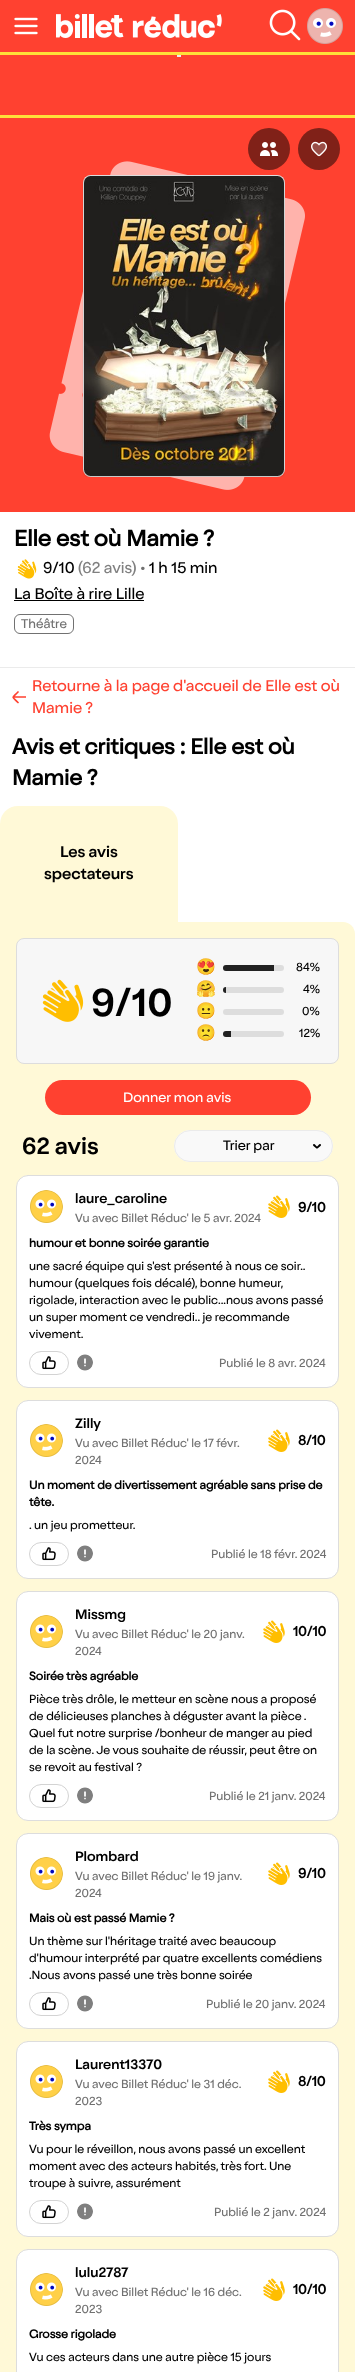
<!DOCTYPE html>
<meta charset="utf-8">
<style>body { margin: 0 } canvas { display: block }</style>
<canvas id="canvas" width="355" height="2372"></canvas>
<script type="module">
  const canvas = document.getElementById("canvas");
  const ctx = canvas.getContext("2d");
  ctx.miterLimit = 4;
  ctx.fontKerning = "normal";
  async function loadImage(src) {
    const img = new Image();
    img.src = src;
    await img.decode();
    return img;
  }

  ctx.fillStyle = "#ffffff";
  ctx.fillRect(0, 0, 355, 2372);
  ctx.fillStyle = "#ff4130";
  ctx.fillRect(0, 0, 355, 52);
  ctx.fillStyle = "#ffe039";
  ctx.fillRect(0, 52, 355, 3);
  ctx.drawImage(await loadImage("img1.png"), 14, 17, 24, 18);
  ctx.drawImage(await loadImage("img2.png"), 56, 14, 166, 24);
  ctx.drawImage(await loadImage("img3.png"), 269, 9, 32, 32);
  ctx.drawImage(await loadImage("img4.png"), 307, 8, 36, 36);
  ctx.fillStyle = "#ff4130";
  ctx.fillRect(0, 55, 355, 457);
  ctx.fillStyle = "#ffe039";
  ctx.fillRect(0, 115, 355, 3);
  ctx.fillStyle = "#eeeeee";
  ctx.fillRect(177, 55, 4, 2);
  ctx.drawImage(await loadImage("img7.png"), 49, 161, 256, 329);
  ctx.fillStyle = "#802118";
  ctx.beginPath();
  ctx.arc(269, 149, 21, 0, Math.PI * 2);
  ctx.fill();
  ctx.drawImage(await loadImage("img5.png"), 260, 142, 18, 14);
  ctx.beginPath();
  ctx.arc(319, 149, 21, 0, Math.PI * 2);
  ctx.fill();
  ctx.drawImage(await loadImage("img6.png"), 311, 141, 16, 16);
  ctx.fillStyle = "#ffffff";
  ctx.beginPath();
  ctx.roundRect(83, 175, 202, 302, 8);
  ctx.fill();
  ctx.beginPath();
  ctx.roundRect(83.5, 175.5, 201, 301, 7.5);
  ctx.strokeStyle = "rgba(0, 0, 0, 0.1)";
  ctx.stroke();
  ctx.drawImage(await loadImage("img8.png"), 82, 175, 203, 302);
  ctx.font = "bold 23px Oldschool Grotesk";
  ctx.fillStyle = "#000000";
  ctx.fillText("Elle est où Mamie ?", 14, 546);
  ctx.drawImage(await loadImage("img9.png"), 17, 559, 20, 20);
  ctx.font = "16px Oldschool Grotesk";
  ctx.fillText("9/10", 43, 573);
  ctx.fillStyle = "#808080";
  ctx.fillText("(62 avis)", 78, 573);
  ctx.fillStyle = "#717171";
  ctx.fillText("•", 140, 573);
  ctx.fillStyle = "#000000";
  ctx.fillText("1 h 15 min", 149, 573);
  ctx.fillText("La Boîte à rire Lille", 14, 599);
  ctx.fillRect(14, 600, 130, 1);
  ctx.beginPath();
  ctx.roundRect(14.5, 614.5, 59, 19, 5.5);
  ctx.strokeStyle = "#717171";
  ctx.stroke();
  ctx.font = "13px Oldschool Grotesk";
  ctx.fillStyle = "#717171";
  ctx.fillText("Théâtre", 21, 628);
  ctx.fillStyle = "#ebebeb";
  ctx.fillRect(0, 667, 355, 1);
  ctx.save();
  ctx.beginPath();
  ctx.rect(12, 690, 14, 15);
  ctx.clip();
  ctx.beginPath();
  ctx.moveTo(18, 692);
  ctx.bezierCurveTo(11.5, 698.5, 11.5, 696, 18, 702.5);
  ctx.moveTo(13.5, 697);
  ctx.lineTo(26.5, 697);
  ctx.strokeStyle = "#ff4130";
  ctx.lineWidth = 1.7;
  ctx.lineCap = "round";
  ctx.lineJoin = "round";
  ctx.stroke();
  ctx.restore();
  ctx.font = "16px Oldschool Grotesk";
  ctx.fillStyle = "#ff4130";
  ctx.fillText("Retourne à la page d'accueil de Elle est où", 32, 691);
  ctx.fillText("Mamie ?", 32, 713);
  ctx.font = "bold 22.4px Oldschool Grotesk";
  ctx.fillStyle = "#000000";
  ctx.fillText("Avis et critiques : Elle est où", 12, 754);
  ctx.fillText("Mamie ?", 12, 785);
  ctx.fillStyle = "#fff9d7";
  ctx.beginPath();
  ctx.roundRect(0, 806, 178, 116, [18, 18, 0, 0]);
  ctx.fill();
  ctx.font = "500 16px Oldschool Grotesk";
  ctx.fillStyle = "#000000";
  ctx.fillText("Les avis", 60, 857);
  ctx.fillText("spectateurs", 44, 879);
  ctx.fillStyle = "#fff9d7";
  ctx.beginPath();
  ctx.moveTo(0, 922);
  ctx.lineTo(343, 922);
  ctx.bezierCurveTo(349.5, 922, 355, 927.5, 355, 934);
  ctx.lineTo(355, 2372);
  ctx.bezierCurveTo(355, 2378.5, 349.5, 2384, 343, 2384);
  ctx.lineTo(12, 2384);
  ctx.bezierCurveTo(5.5, 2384, 0, 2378.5, 0, 2372);
  ctx.closePath();
  ctx.fill();
  ctx.fillStyle = "#f7f7f7";
  ctx.beginPath();
  ctx.roundRect(16.5, 938.5, 322, 125, 7.5);
  ctx.fill();
  ctx.strokeStyle = "#dddddd";
  ctx.stroke();
  ctx.drawImage(await loadImage("img10.png"), 42, 979, 42, 43);
  ctx.font = "500 40px Oldschool Grotesk";
  ctx.fillStyle = "#000000";
  ctx.fillText("9/10", 91, 1016);
  ctx.font = "16px Noto Color Emoji";
  ctx.fillText("😍", 196, 972);
  ctx.fillStyle = "#dddddd";
  ctx.beginPath();
  ctx.roundRect(223, 965, 61, 6, 3);
  ctx.fill();
  ctx.fillStyle = "#222222";
  ctx.beginPath();
  ctx.roundRect(223, 965, 51, 6, [3, 0, 0, 3]);
  ctx.fill();
  ctx.font = "12px Oldschool Grotesk";
  ctx.fillStyle = "#000000";
  ctx.fillText("84%", 296, 971);
  ctx.font = "16px Noto Color Emoji";
  ctx.fillText("🤗", 196, 994);
  ctx.fillStyle = "#dddddd";
  ctx.beginPath();
  ctx.roundRect(223, 987, 61, 6, 3);
  ctx.fill();
  ctx.fillStyle = "#222222";
  ctx.beginPath();
  ctx.roundRect(223, 987, 3, 6, [3, 0, 0, 3]);
  ctx.fill();
  ctx.font = "12px Oldschool Grotesk";
  ctx.fillStyle = "#000000";
  ctx.fillText("4%", 303, 993);
  ctx.font = "16px Noto Color Emoji";
  ctx.fillText("😐", 196, 1016);
  ctx.fillStyle = "#dddddd";
  ctx.beginPath();
  ctx.roundRect(223, 1009, 61, 6, 3);
  ctx.fill();
  ctx.font = "12px Oldschool Grotesk";
  ctx.fillStyle = "#000000";
  ctx.fillText("0%", 302, 1015);
  ctx.font = "16px Noto Color Emoji";
  ctx.fillText("🙁", 196, 1038);
  ctx.fillStyle = "#dddddd";
  ctx.beginPath();
  ctx.roundRect(223, 1031, 61, 6, 3);
  ctx.fill();
  ctx.fillStyle = "#222222";
  ctx.beginPath();
  ctx.roundRect(223, 1031, 8, 6, [3, 0, 0, 3]);
  ctx.fill();
  ctx.font = "12px Oldschool Grotesk";
  ctx.fillStyle = "#000000";
  ctx.fillText("12%", 299, 1037);
  ctx.fillStyle = "#ff4130";
  ctx.beginPath();
  ctx.roundRect(45, 1080, 266, 35, 17.5);
  ctx.fill();
  ctx.font = "14px Oldschool Grotesk";
  ctx.fillStyle = "#ffffff";
  ctx.fillText("Donner mon avis", 123, 1102);
  ctx.font = "500 24px Oldschool Grotesk";
  ctx.fillStyle = "#000000";
  ctx.fillText("62 avis", 22, 1154);
  ctx.fillStyle = "#f9f9f9";
  ctx.beginPath();
  ctx.roundRect(174, 1130, 159, 32, 16);
  ctx.fill();
  ctx.beginPath();
  ctx.moveTo(314, 1145);
  ctx.bezierCurveTo(317.5, 1148.5, 316.5, 1148.5, 320, 1145);
  ctx.strokeStyle = "#000000";
  ctx.lineWidth = 2;
  ctx.lineCap = "round";
  ctx.lineJoin = "round";
  ctx.stroke();
  ctx.beginPath();
  ctx.roundRect(174.5, 1130.5, 158, 31, 15.5);
  ctx.strokeStyle = "#ebebeb";
  ctx.lineWidth = 1;
  ctx.lineJoin = "miter";
  ctx.stroke();
  ctx.font = "14px Oldschool Grotesk";
  ctx.fillStyle = "#000000";
  ctx.fillText("Trier par", 223, 1150);
  ctx.fillStyle = "#ffffff";
  ctx.beginPath();
  ctx.roundRect(16.5, 1175.5, 322, 212, 11.5);
  ctx.fill();
  ctx.strokeStyle = "#dddddd";
  ctx.stroke();
  ctx.drawImage(await loadImage("img11.png"), 30, 1190, 33, 33);
  ctx.font = "500 14px Oldschool Grotesk";
  ctx.fillStyle = "#000000";
  ctx.fillText("laure_caroline", 75, 1203);
  ctx.font = "12px Oldschool Grotesk";
  ctx.fillStyle = "#717171";
  ctx.fillText("Vu avec Billet Réduc' le 5 avr. 2024", 75, 1222);
  ctx.drawImage(await loadImage("img12.png"), 268, 1195, 22, 23);
  ctx.font = "bold 14px Oldschool Grotesk";
  ctx.fillStyle = "#000000";
  ctx.fillText("9/10", 298, 1212);
  ctx.font = "bold 12px Oldschool Grotesk";
  ctx.fillText("humour et bonne soirée garantie", 29, 1247);
  ctx.font = "12px Oldschool Grotesk";
  ctx.fillText("une sacré équipe qui s'est présenté à nous ce soir..", 29, 1270);
  ctx.fillText("humour (quelques fois décalé), bonne humeur,", 29, 1287);
  ctx.fillText("rigolade, interaction avec le public...nous avons passé", 29, 1304);
  ctx.fillText("un super moment ce vendredi.. je recommande", 29, 1321);
  ctx.fillText("vivement.", 29, 1338);
  ctx.beginPath();
  ctx.roundRect(29.5, 1351.5, 39, 23, 11.5);
  ctx.strokeStyle = "#d3d3d3";
  ctx.stroke();
  ctx.drawImage(await loadImage("img13.png"), 77, 1354, 16, 17);
  ctx.drawImage(await loadImage("img14.png"), 42, 1356, 14, 14);
  ctx.fillStyle = "#717171";
  ctx.fillText("Publié le 8 avr. 2024", 219, 1367);
  ctx.fillStyle = "#ffffff";
  ctx.beginPath();
  ctx.roundRect(16.5, 1400.5, 322, 178, 11.5);
  ctx.fill();
  ctx.strokeStyle = "#dddddd";
  ctx.stroke();
  ctx.drawImage(await loadImage("img11.png"), 30, 1424, 33, 33);
  ctx.font = "500 14px Oldschool Grotesk";
  ctx.fillStyle = "#000000";
  ctx.fillText("Zilly", 75, 1428);
  ctx.font = "12px Oldschool Grotesk";
  ctx.fillStyle = "#717171";
  ctx.fillText("Vu avec Billet Réduc' le 17 févr.", 75, 1447);
  ctx.fillText("2024", 75, 1464);
  ctx.drawImage(await loadImage("img12.png"), 268, 1429, 22, 23);
  ctx.font = "bold 14px Oldschool Grotesk";
  ctx.fillStyle = "#000000";
  ctx.fillText("8/10", 298, 1445);
  ctx.font = "bold 12px Oldschool Grotesk";
  ctx.fillText("Un moment de divertissement agréable sans prise de", 29, 1489);
  ctx.fillText("tête.", 29, 1506);
  ctx.font = "12px Oldschool Grotesk";
  ctx.fillText(". un jeu prometteur.", 29, 1529);
  ctx.beginPath();
  ctx.roundRect(29.5, 1542.5, 39, 23, 11.5);
  ctx.strokeStyle = "#d3d3d3";
  ctx.stroke();
  ctx.drawImage(await loadImage("img13.png"), 77, 1545, 16, 17);
  ctx.drawImage(await loadImage("img14.png"), 42, 1547, 14, 14);
  ctx.fillStyle = "#717171";
  ctx.fillText("Publié le 18 févr. 2024", 211, 1558);
  ctx.fillStyle = "#ffffff";
  ctx.beginPath();
  ctx.roundRect(16.5, 1591.5, 322, 229, 11.5);
  ctx.fill();
  ctx.strokeStyle = "#dddddd";
  ctx.stroke();
  ctx.drawImage(await loadImage("img11.png"), 30, 1615, 33, 33);
  ctx.font = "500 14px Oldschool Grotesk";
  ctx.fillStyle = "#000000";
  ctx.fillText("Missmg", 75, 1619);
  ctx.font = "12px Oldschool Grotesk";
  ctx.fillStyle = "#717171";
  ctx.fillText("Vu avec Billet Réduc' le 20 janv.", 75, 1638);
  ctx.fillText("2024", 75, 1655);
  ctx.drawImage(await loadImage("img12.png"), 263, 1620, 22, 23);
  ctx.font = "bold 14px Oldschool Grotesk";
  ctx.fillStyle = "#000000";
  ctx.fillText("10/10", 293, 1636);
  ctx.font = "bold 12px Oldschool Grotesk";
  ctx.fillText("Soirée très agréable", 29, 1680);
  ctx.font = "12px Oldschool Grotesk";
  ctx.fillText("Pièce très drôle, le metteur en scène nous a proposé", 29, 1703);
  ctx.fillText("de délicieuses planches à déguster avant la pièce .", 29, 1720);
  ctx.fillText("Quel fut notre surprise /bonheur de manger au pied", 29, 1737);
  ctx.fillText("de la scène. Je vous souhaite de réussir, peut être on", 29, 1754);
  ctx.fillText("se revoit au festival ?", 29, 1771);
  ctx.beginPath();
  ctx.roundRect(29.5, 1784.5, 39, 23, 11.5);
  ctx.strokeStyle = "#d3d3d3";
  ctx.stroke();
  ctx.drawImage(await loadImage("img13.png"), 77, 1787, 16, 17);
  ctx.drawImage(await loadImage("img14.png"), 42, 1789, 14, 14);
  ctx.fillStyle = "#717171";
  ctx.fillText("Publié le 21 janv. 2024", 209, 1800);
  ctx.fillStyle = "#ffffff";
  ctx.beginPath();
  ctx.roundRect(16.5, 1833.5, 322, 195, 11.5);
  ctx.fill();
  ctx.strokeStyle = "#dddddd";
  ctx.stroke();
  ctx.drawImage(await loadImage("img11.png"), 30, 1857, 33, 33);
  ctx.font = "500 14px Oldschool Grotesk";
  ctx.fillStyle = "#000000";
  ctx.fillText("Plombard", 75, 1861);
  ctx.font = "12px Oldschool Grotesk";
  ctx.fillStyle = "#717171";
  ctx.fillText("Vu avec Billet Réduc' le 19 janv.", 75, 1880);
  ctx.fillText("2024", 75, 1897);
  ctx.drawImage(await loadImage("img12.png"), 268, 1862, 22, 23);
  ctx.font = "bold 14px Oldschool Grotesk";
  ctx.fillStyle = "#000000";
  ctx.fillText("9/10", 298, 1878);
  ctx.font = "bold 12px Oldschool Grotesk";
  ctx.fillText("Mais où est passé Mamie ?", 29, 1922);
  ctx.font = "12px Oldschool Grotesk";
  ctx.fillText("Un thème sur l'héritage traité avec beaucoup", 29, 1945);
  ctx.fillText("d'humour interprété par quatre excellents comédiens", 29, 1962);
  ctx.fillText(".Nous avons passé une très bonne soirée", 29, 1979);
  ctx.beginPath();
  ctx.roundRect(29.5, 1992.5, 39, 23, 11.5);
  ctx.strokeStyle = "#d3d3d3";
  ctx.stroke();
  ctx.drawImage(await loadImage("img13.png"), 77, 1995, 16, 17);
  ctx.drawImage(await loadImage("img14.png"), 42, 1997, 14, 14);
  ctx.fillStyle = "#717171";
  ctx.fillText("Publié le 20 janv. 2024", 206, 2008);
  ctx.fillStyle = "#ffffff";
  ctx.beginPath();
  ctx.roundRect(16.5, 2041.5, 322, 195, 11.5);
  ctx.fill();
  ctx.strokeStyle = "#dddddd";
  ctx.stroke();
  ctx.drawImage(await loadImage("img11.png"), 30, 2065, 33, 33);
  ctx.font = "500 14px Oldschool Grotesk";
  ctx.fillStyle = "#000000";
  ctx.fillText("Laurent13370", 75, 2069);
  ctx.font = "12px Oldschool Grotesk";
  ctx.fillStyle = "#717171";
  ctx.fillText("Vu avec Billet Réduc' le 31 déc.", 75, 2088);
  ctx.fillText("2023", 75, 2105);
  ctx.drawImage(await loadImage("img12.png"), 268, 2070, 22, 23);
  ctx.font = "bold 14px Oldschool Grotesk";
  ctx.fillStyle = "#000000";
  ctx.fillText("8/10", 298, 2086);
  ctx.font = "bold 12px Oldschool Grotesk";
  ctx.fillText("Très sympa", 29, 2130);
  ctx.font = "12px Oldschool Grotesk";
  ctx.fillText("Vu pour le réveillon, nous avons passé un excellent", 29, 2153);
  ctx.fillText("moment avec des acteurs habités, très fort. Une", 29, 2170);
  ctx.fillText("troupe à suivre, assurément", 29, 2187);
  ctx.beginPath();
  ctx.roundRect(29.5, 2200.5, 39, 23, 11.5);
  ctx.strokeStyle = "#d3d3d3";
  ctx.stroke();
  ctx.drawImage(await loadImage("img13.png"), 77, 2203, 16, 17);
  ctx.drawImage(await loadImage("img14.png"), 42, 2205, 14, 14);
  ctx.fillStyle = "#717171";
  ctx.fillText("Publié le 2 janv. 2024", 214, 2216);
  ctx.fillStyle = "#ffffff";
  ctx.beginPath();
  ctx.roundRect(16.5, 2249.5, 322, 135, 11.5);
  ctx.fill();
  ctx.strokeStyle = "#dddddd";
  ctx.stroke();
  ctx.drawImage(await loadImage("img11.png"), 30, 2273, 33, 33);
  ctx.font = "500 14px Oldschool Grotesk";
  ctx.fillStyle = "#000000";
  ctx.fillText("lulu2787", 75, 2277);
  ctx.font = "12px Oldschool Grotesk";
  ctx.fillStyle = "#717171";
  ctx.fillText("Vu avec Billet Réduc' le 16 déc.", 75, 2296);
  ctx.fillText("2023", 75, 2313);
  ctx.drawImage(await loadImage("img12.png"), 263, 2278, 22, 23);
  ctx.font = "bold 14px Oldschool Grotesk";
  ctx.fillStyle = "#000000";
  ctx.fillText("10/10", 293, 2294);
  ctx.font = "bold 12px Oldschool Grotesk";
  ctx.fillText("Grosse rigolade", 29, 2338);
  ctx.font = "12px Oldschool Grotesk";
  ctx.fillText("Vu ces acteurs dans une autre pièce 15 jours", 29, 2361);
</script>
